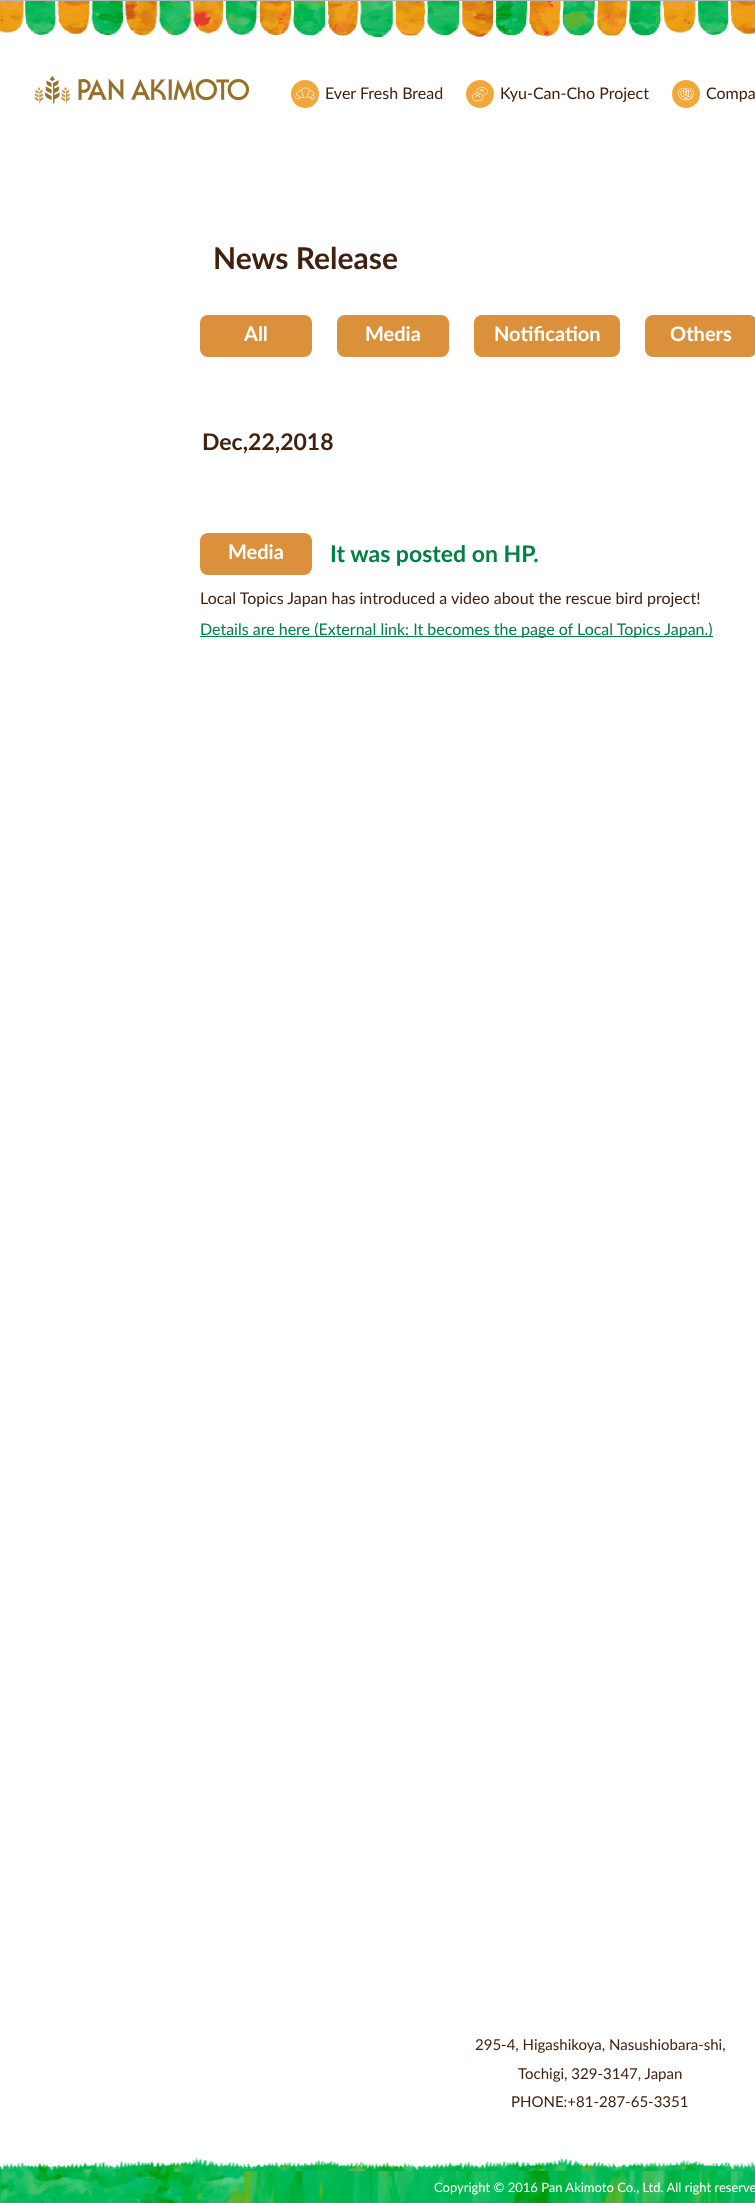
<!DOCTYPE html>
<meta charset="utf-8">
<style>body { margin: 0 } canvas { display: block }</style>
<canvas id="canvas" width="755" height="2203"></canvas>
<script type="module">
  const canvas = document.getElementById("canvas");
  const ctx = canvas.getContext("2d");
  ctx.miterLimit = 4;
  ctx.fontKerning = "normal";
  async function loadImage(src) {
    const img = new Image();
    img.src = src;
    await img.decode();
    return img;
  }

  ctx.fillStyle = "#ffffff";
  ctx.fillRect(0, 0, 755, 2203);
  ctx.drawImage(await loadImage("img1.png"), 0, 0, 755, 37);
  ctx.drawImage(await loadImage("img2.png"), 34, 75, 215, 29);
  ctx.drawImage(await loadImage("img3.png"), 291, 80, 28, 28);
  ctx.font = "16px Lato";
  ctx.fillStyle = "#40210f";
  ctx.fillText("Ever Fresh Bread", 325, 99);
  ctx.drawImage(await loadImage("img4.png"), 466, 80, 28, 28);
  ctx.fillText("Kyu-Can-Cho Project", 500, 99);
  ctx.drawImage(await loadImage("img5.png"), 672, 80, 28, 28);
  ctx.fillText("Compa", 706, 99);
  ctx.font = "bold 30px Lato";
  ctx.fillText("News Release", 213, 269);
  ctx.fillStyle = "#db903b";
  ctx.beginPath();
  ctx.roundRect(200, 315, 112, 42, 8);
  ctx.fill();
  ctx.font = "bold 20px Lato";
  ctx.fillStyle = "#ffffff";
  ctx.fillText("All", 244, 341);
  ctx.fillStyle = "#db903b";
  ctx.beginPath();
  ctx.roundRect(337, 315, 112, 42, 8);
  ctx.fill();
  ctx.fillStyle = "#ffffff";
  ctx.fillText("Media", 365, 341);
  ctx.fillStyle = "#db903b";
  ctx.beginPath();
  ctx.roundRect(474, 315, 146, 42, 8);
  ctx.fill();
  ctx.fillStyle = "#ffffff";
  ctx.fillText("Notification", 494, 341);
  ctx.fillStyle = "#db903b";
  ctx.beginPath();
  ctx.roundRect(645, 315, 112, 42, 8);
  ctx.fill();
  ctx.fillStyle = "#ffffff";
  ctx.fillText("Others", 670, 341);
  ctx.font = "bold 23px Lato";
  ctx.fillStyle = "#40210f";
  ctx.fillText("Dec,22,2018", 202, 450);
  ctx.fillStyle = "#db903b";
  ctx.beginPath();
  ctx.roundRect(200, 533, 112, 42, 8);
  ctx.fill();
  ctx.font = "bold 20px Lato";
  ctx.fillStyle = "#ffffff";
  ctx.fillText("Media", 228, 559);
  ctx.font = "bold 23px Lato";
  ctx.fillStyle = "#008044";
  ctx.fillText("It was posted on HP.", 330, 562);
  ctx.font = "16px Lato";
  ctx.fillStyle = "#40210f";
  ctx.fillText("Local Topics Japan has introduced a video about the rescue bird project!", 200, 604);
  ctx.fillStyle = "#008044";
  ctx.fillRect(200, 636, 513, 1);
  ctx.fillText("Details are here (External link: It becomes the page of Local Topics Japan.)", 200, 635);
  ctx.drawImage(await loadImage("img6.png"), 0, 2157, 755, 46);
  ctx.font = "15px Lato";
  ctx.fillStyle = "#40210f";
  ctx.fillText("295-4, Higashikoya, Nasushiobara-shi,", 475, 2050);
  ctx.fillText("Tochigi, 329-3147, Japan", 518, 2079);
  ctx.fillText("PHONE:+81-287-65-3351", 511, 2107);
  ctx.font = "13px Lato";
  ctx.fillStyle = "#ffffff";
  ctx.fillText("Copyright © 2016 Pan Akimoto Co., Ltd. All right reserve", 434, 2192);
</script>
